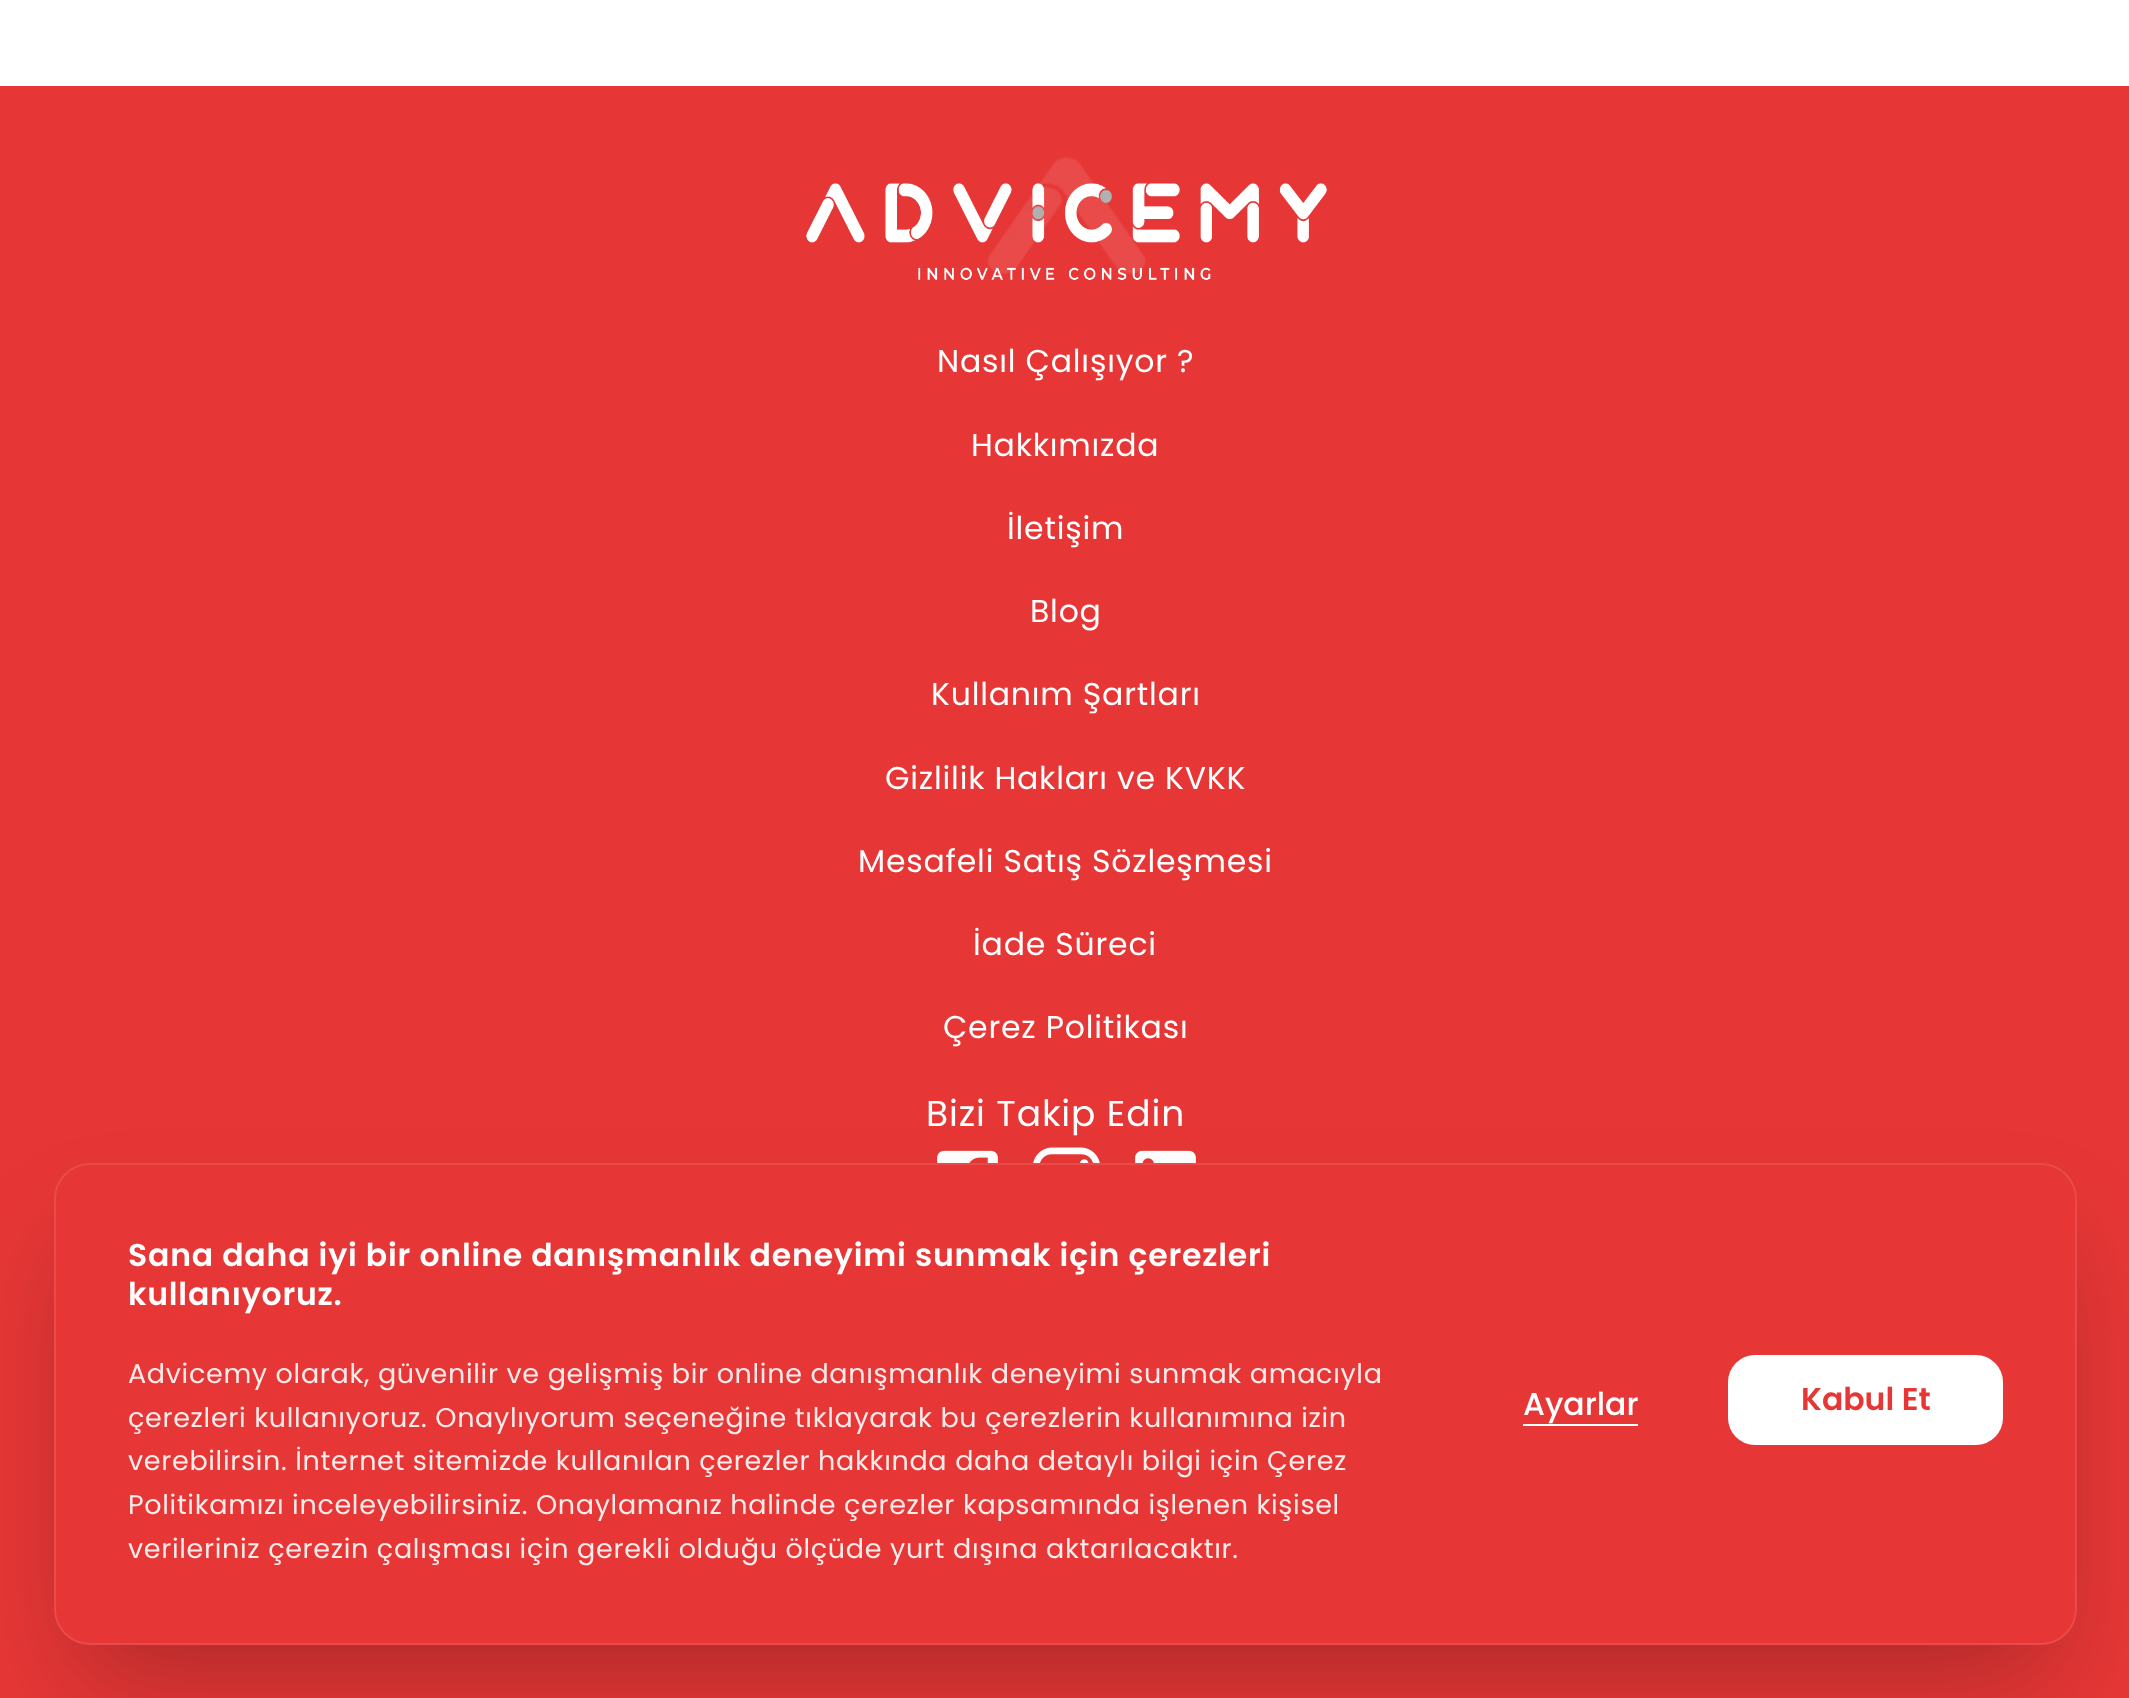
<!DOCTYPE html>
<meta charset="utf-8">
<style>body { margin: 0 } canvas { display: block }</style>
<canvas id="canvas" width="2129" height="1698"></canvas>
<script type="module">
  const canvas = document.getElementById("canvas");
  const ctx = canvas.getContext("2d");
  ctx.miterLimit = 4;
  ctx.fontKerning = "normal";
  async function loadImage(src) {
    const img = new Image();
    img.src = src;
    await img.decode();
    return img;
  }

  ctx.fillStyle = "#ffffff";
  ctx.fillRect(0, 0, 2129, 1698);
  ctx.fillStyle = "#e63736";
  ctx.fillRect(0, 86, 2129, 1612);
  ctx.drawImage(await loadImage("img1.png"), 987, 157, 159, 117);
  ctx.drawImage(await loadImage("img2.png"), 806, 183, 521, 97);
  ctx.letterSpacing = "0.8px";
  ctx.font = "31.5px Poppins";
  ctx.fillStyle = "#ffffff";
  ctx.fillText("Nasıl Çalışıyor ?", 937, 372);
  ctx.fillText("Hakkımızda", 971, 456);
  ctx.fillText("İletişim", 1007, 539);
  ctx.fillText("Blog", 1030, 622);
  ctx.fillText("Kullanım Şartları", 931, 705);
  ctx.fillText("Gizlilik Hakları ve KVKK", 885, 789);
  ctx.fillText("Mesafeli Satış Sözleşmesi", 858, 872);
  ctx.fillText("İade Süreci", 973, 955);
  ctx.fillText("Çerez Politikası", 943, 1038);
  ctx.letterSpacing = "0.9px";
  ctx.font = "36px Poppins";
  ctx.fillText("Bizi Takip Edin", 926, 1126);
  ctx.drawImage(await loadImage("img3.png"), 937, 1150, 61, 13);
  ctx.drawImage(await loadImage("img4.png"), 1033, 1147, 67, 16);
  ctx.drawImage(await loadImage("img5.png"), 1135, 1150, 61, 13);
  ctx.fillStyle = "rgba(0, 0, 0, 0.25)";
  ctx.filter = "blur(56px)";
  ctx.beginPath();
  ctx.roundRect(81, 1247, 1969, 427, 9);
  ctx.fill();
  ctx.filter = "none";
  ctx.fillStyle = "#e63736";
  ctx.beginPath();
  ctx.roundRect(54, 1163, 2023, 482, 36);
  ctx.fill();
  ctx.beginPath();
  ctx.roundRect(55, 1164, 2021, 480, 35);
  ctx.strokeStyle = "rgba(255, 255, 255, 0.1)";
  ctx.lineWidth = 2;
  ctx.stroke();
  ctx.letterSpacing = "0.8px";
  ctx.font = "600 31.5px Poppins";
  ctx.fillStyle = "#ffffff";
  ctx.fillText("Sana daha iyi bir online danışmanlık deneyimi sunmak için çerezleri", 128, 1266);
  ctx.fillText("kullanıyoruz.", 128, 1305);
  ctx.letterSpacing = "0.67px";
  ctx.font = "27px Poppins";
  ctx.fillStyle = "#fdebeb";
  ctx.fillText("Advicemy olarak, güvenilir ve gelişmiş bir online danışmanlık deneyimi sunmak amacıyla", 128, 1383);
  ctx.fillText("çerezleri kullanıyoruz. Onaylıyorum seçeneğine tıklayarak bu çerezlerin kullanımına izin", 128, 1427);
  ctx.fillText("verebilirsin. İnternet sitemizde kullanılan çerezler hakkında daha detaylı bilgi için Çerez", 128, 1470);
  ctx.fillText("Politikamızı inceleyebilirsiniz. Onaylamanız halinde çerezler kapsamında işlenen kişisel", 128, 1514);
  ctx.fillText("verileriniz çerezin çalışması için gerekli olduğu ölçüde yurt dışına aktarılacaktır.", 128, 1558);
  ctx.letterSpacing = "0px";
  ctx.font = "500 31.5px Poppins";
  ctx.fillStyle = "#ffffff";
  ctx.fillText("Ayarlar", 1523, 1415);
  ctx.fillRect(1523, 1424, 115, 2);
  ctx.beginPath();
  ctx.roundRect(1728, 1355, 275, 90, 27);
  ctx.fill();
  ctx.font = "600 31.5px Poppins";
  ctx.fillStyle = "#e63736";
  ctx.fillText("Kabul Et", 1801, 1410);
</script>
